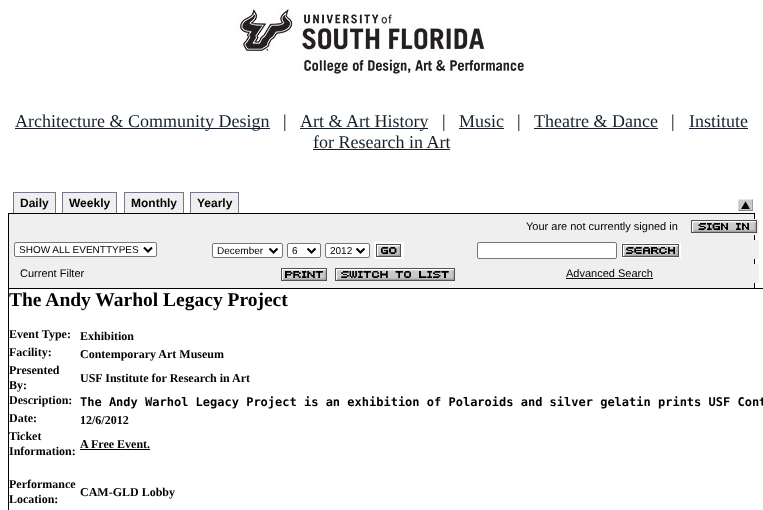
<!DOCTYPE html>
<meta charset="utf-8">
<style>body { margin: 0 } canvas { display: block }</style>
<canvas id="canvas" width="763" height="510"></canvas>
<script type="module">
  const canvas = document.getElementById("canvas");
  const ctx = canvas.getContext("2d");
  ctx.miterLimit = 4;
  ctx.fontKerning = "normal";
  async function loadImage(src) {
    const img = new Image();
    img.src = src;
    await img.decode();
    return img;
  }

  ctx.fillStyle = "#ffffff";
  ctx.fillRect(0, 0, 763, 510);
  ctx.drawImage(await loadImage("img1.png"), 236, 8, 288, 67);
  ctx.fillStyle = "#17202a";
  ctx.fillRect(15, 128, 255, 1);
  ctx.font = "18px Liberation Serif";
  ctx.fillText("Architecture & Community Design", 15, 127);
  ctx.fillStyle = "#000000";
  ctx.fillText("|", 283, 127);
  ctx.fillStyle = "#17202a";
  ctx.fillRect(300, 128, 128, 1);
  ctx.fillText("Art & Art History", 300, 127);
  ctx.fillStyle = "#000000";
  ctx.fillText("|", 442, 127);
  ctx.fillStyle = "#17202a";
  ctx.fillText("Music", 459, 127);
  ctx.fillRect(459, 128, 45, 1);
  ctx.fillStyle = "#000000";
  ctx.fillText("|", 517, 127);
  ctx.fillStyle = "#17202a";
  ctx.fillText("Theatre & Dance", 534, 127);
  ctx.fillRect(534, 128, 124, 1);
  ctx.fillStyle = "#000000";
  ctx.fillText("|", 671, 127);
  ctx.fillStyle = "#17202a";
  ctx.fillText("Institute", 689, 127);
  ctx.fillRect(689, 128, 59, 1);
  ctx.fillText("for Research in Art", 313, 148);
  ctx.fillRect(313, 149, 137, 1);
  ctx.fillStyle = "#efefef";
  ctx.fillRect(14, 193, 41, 20);
  ctx.font = "bold 12px Liberation Sans";
  ctx.fillStyle = "#000000";
  ctx.fillText("Daily", 20, 207);
  ctx.fillStyle = "#777788";
  ctx.fillRect(13, 192, 43, 1);
  ctx.fillRect(55, 192, 1, 21);
  ctx.fillRect(13, 192, 1, 21);
  ctx.fillStyle = "#efefef";
  ctx.fillRect(63, 193, 53, 20);
  ctx.fillStyle = "#000000";
  ctx.fillText("Weekly", 69, 207);
  ctx.fillStyle = "#777788";
  ctx.fillRect(62, 192, 55, 1);
  ctx.fillRect(116, 192, 1, 21);
  ctx.fillRect(62, 192, 1, 21);
  ctx.fillStyle = "#efefef";
  ctx.fillRect(125, 193, 58, 20);
  ctx.fillStyle = "#000000";
  ctx.fillText("Monthly", 131, 207);
  ctx.fillStyle = "#777788";
  ctx.fillRect(124, 192, 60, 1);
  ctx.fillRect(183, 192, 1, 21);
  ctx.fillRect(124, 192, 1, 21);
  ctx.fillStyle = "#efefef";
  ctx.fillRect(191, 193, 47, 20);
  ctx.fillStyle = "#000000";
  ctx.fillText("Yearly", 197, 207);
  ctx.fillStyle = "#777788";
  ctx.fillRect(190, 192, 49, 1);
  ctx.fillRect(238, 192, 1, 21);
  ctx.fillRect(190, 192, 1, 21);
  ctx.drawImage(await loadImage("img2.png"), 738, 199, 15, 12);
  ctx.fillStyle = "#efefef";
  ctx.fillRect(9, 214, 745, 74);
  ctx.fillStyle = "#000000";
  ctx.fillRect(8, 213, 747, 1);
  ctx.fillRect(754, 213, 1, 75);
  ctx.fillRect(8, 213, 1, 75);
  ctx.fillStyle = "#efefef";
  ctx.fillRect(754, 219, 5, 16);
  ctx.font = "11px Liberation Sans";
  ctx.fillStyle = "#000000";
  ctx.fillText("Your are not currently signed in", 526, 230);
  ctx.drawImage(await loadImage("img3.png"), 691, 220, 66, 13);
  ctx.fillStyle = "#efefef";
  ctx.fillRect(754, 240, 5, 19);
  ctx.fillStyle = "#ffffff";
  ctx.beginPath();
  ctx.roundRect(14.5, 242.5, 142, 14, 1.5);
  ctx.fill();
  ctx.strokeStyle = "#767676";
  ctx.stroke();
  ctx.beginPath();
  ctx.moveTo(144, 247.5);
  ctx.lineTo(148, 251.5);
  ctx.lineTo(152, 247.5);
  ctx.strokeStyle = "#000000";
  ctx.lineWidth = 2;
  ctx.stroke();
  ctx.font = "10px Liberation Sans";
  ctx.fillStyle = "#000000";
  ctx.fillText("SHOW ALL EVENTTYPES", 19, 253);
  ctx.fillStyle = "#ffffff";
  ctx.beginPath();
  ctx.roundRect(212.5, 243.5, 70, 14, 1.5);
  ctx.fill();
  ctx.strokeStyle = "#767676";
  ctx.lineWidth = 1;
  ctx.stroke();
  ctx.beginPath();
  ctx.moveTo(269.5, 248.5);
  ctx.lineTo(273.5, 252.5);
  ctx.lineTo(277.5, 248.5);
  ctx.strokeStyle = "#000000";
  ctx.lineWidth = 2;
  ctx.stroke();
  ctx.fillStyle = "#000000";
  ctx.fillText("December", 217, 254);
  ctx.fillStyle = "#ffffff";
  ctx.beginPath();
  ctx.roundRect(287.5, 243.5, 33, 14, 1.5);
  ctx.fill();
  ctx.strokeStyle = "#767676";
  ctx.lineWidth = 1;
  ctx.stroke();
  ctx.beginPath();
  ctx.moveTo(307.5, 248.5);
  ctx.lineTo(311.5, 252.5);
  ctx.lineTo(315.5, 248.5);
  ctx.strokeStyle = "#000000";
  ctx.lineWidth = 2;
  ctx.stroke();
  ctx.fillStyle = "#000000";
  ctx.fillText("6", 292, 254);
  ctx.fillStyle = "#ffffff";
  ctx.beginPath();
  ctx.roundRect(325.5, 243.5, 44, 14, 1.5);
  ctx.fill();
  ctx.strokeStyle = "#767676";
  ctx.lineWidth = 1;
  ctx.stroke();
  ctx.beginPath();
  ctx.moveTo(356.5, 248.5);
  ctx.lineTo(360.5, 252.5);
  ctx.lineTo(364.5, 248.5);
  ctx.strokeStyle = "#000000";
  ctx.lineWidth = 2;
  ctx.stroke();
  ctx.fillStyle = "#000000";
  ctx.fillText("2012", 330, 254);
  ctx.fillStyle = "#ffffff";
  ctx.fillRect(374, 242, 30, 17);
  ctx.drawImage(await loadImage("img4.png"), 376, 244, 25, 13);
  ctx.beginPath();
  ctx.roundRect(477.5, 242.5, 139, 16, 1.5);
  ctx.fill();
  ctx.strokeStyle = "#767676";
  ctx.lineWidth = 1;
  ctx.stroke();
  ctx.fillRect(621, 243, 60, 15);
  ctx.drawImage(await loadImage("img5.png"), 622, 244, 57, 13);
  ctx.fillStyle = "#efefef";
  ctx.fillRect(754, 264, 5, 19);
  ctx.font = "11px Liberation Sans";
  ctx.fillStyle = "#000000";
  ctx.fillText("Current Filter", 20, 277);
  ctx.drawImage(await loadImage("img6.png"), 281, 268, 46, 13);
  ctx.drawImage(await loadImage("img7.png"), 335, 268, 120, 13);
  ctx.fillText("Advanced Search", 566, 277);
  ctx.fillRect(566, 278, 87, 1);
  ctx.strokeStyle = "#000000";
  ctx.strokeRect(8.5, 288.5, 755, 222);
  ctx.font = "bold 19.5px Liberation Serif";
  ctx.fillText("The Andy Warhol Legacy Project", 9, 306);
  ctx.font = "bold 12px Liberation Serif";
  ctx.fillText("Event Type:", 9, 338);
  ctx.fillText("Exhibition", 80, 340);
  ctx.fillText("Facility:", 9, 356);
  ctx.fillText("Contemporary Art Museum", 80, 358);
  ctx.fillText("Presented", 9, 374);
  ctx.fillText("By:", 9, 389);
  ctx.fillText("USF Institute for Research in Art", 80, 382);
  ctx.fillText("Description:", 9, 404);
  ctx.font = "bold 12px DejaVu Sans Mono";
  ctx.fillText("The Andy Warhol Legacy Project is an exhibition of Polaroids and silver gelatin prints USF Cont", 80, 406);
  ctx.font = "bold 12px Liberation Serif";
  ctx.fillText("Date:", 9, 422);
  ctx.fillText("12/6/2012", 80, 424);
  ctx.fillText("Ticket", 9, 440);
  ctx.fillText("Information:", 9, 455);
  ctx.fillText("A Free Event.", 80, 448);
  ctx.fillRect(80, 449, 70, 1);
  ctx.fillText("Performance", 9, 488);
  ctx.fillText("Location:", 9, 503);
  ctx.fillText("CAM-GLD Lobby", 80, 496);
</script>
